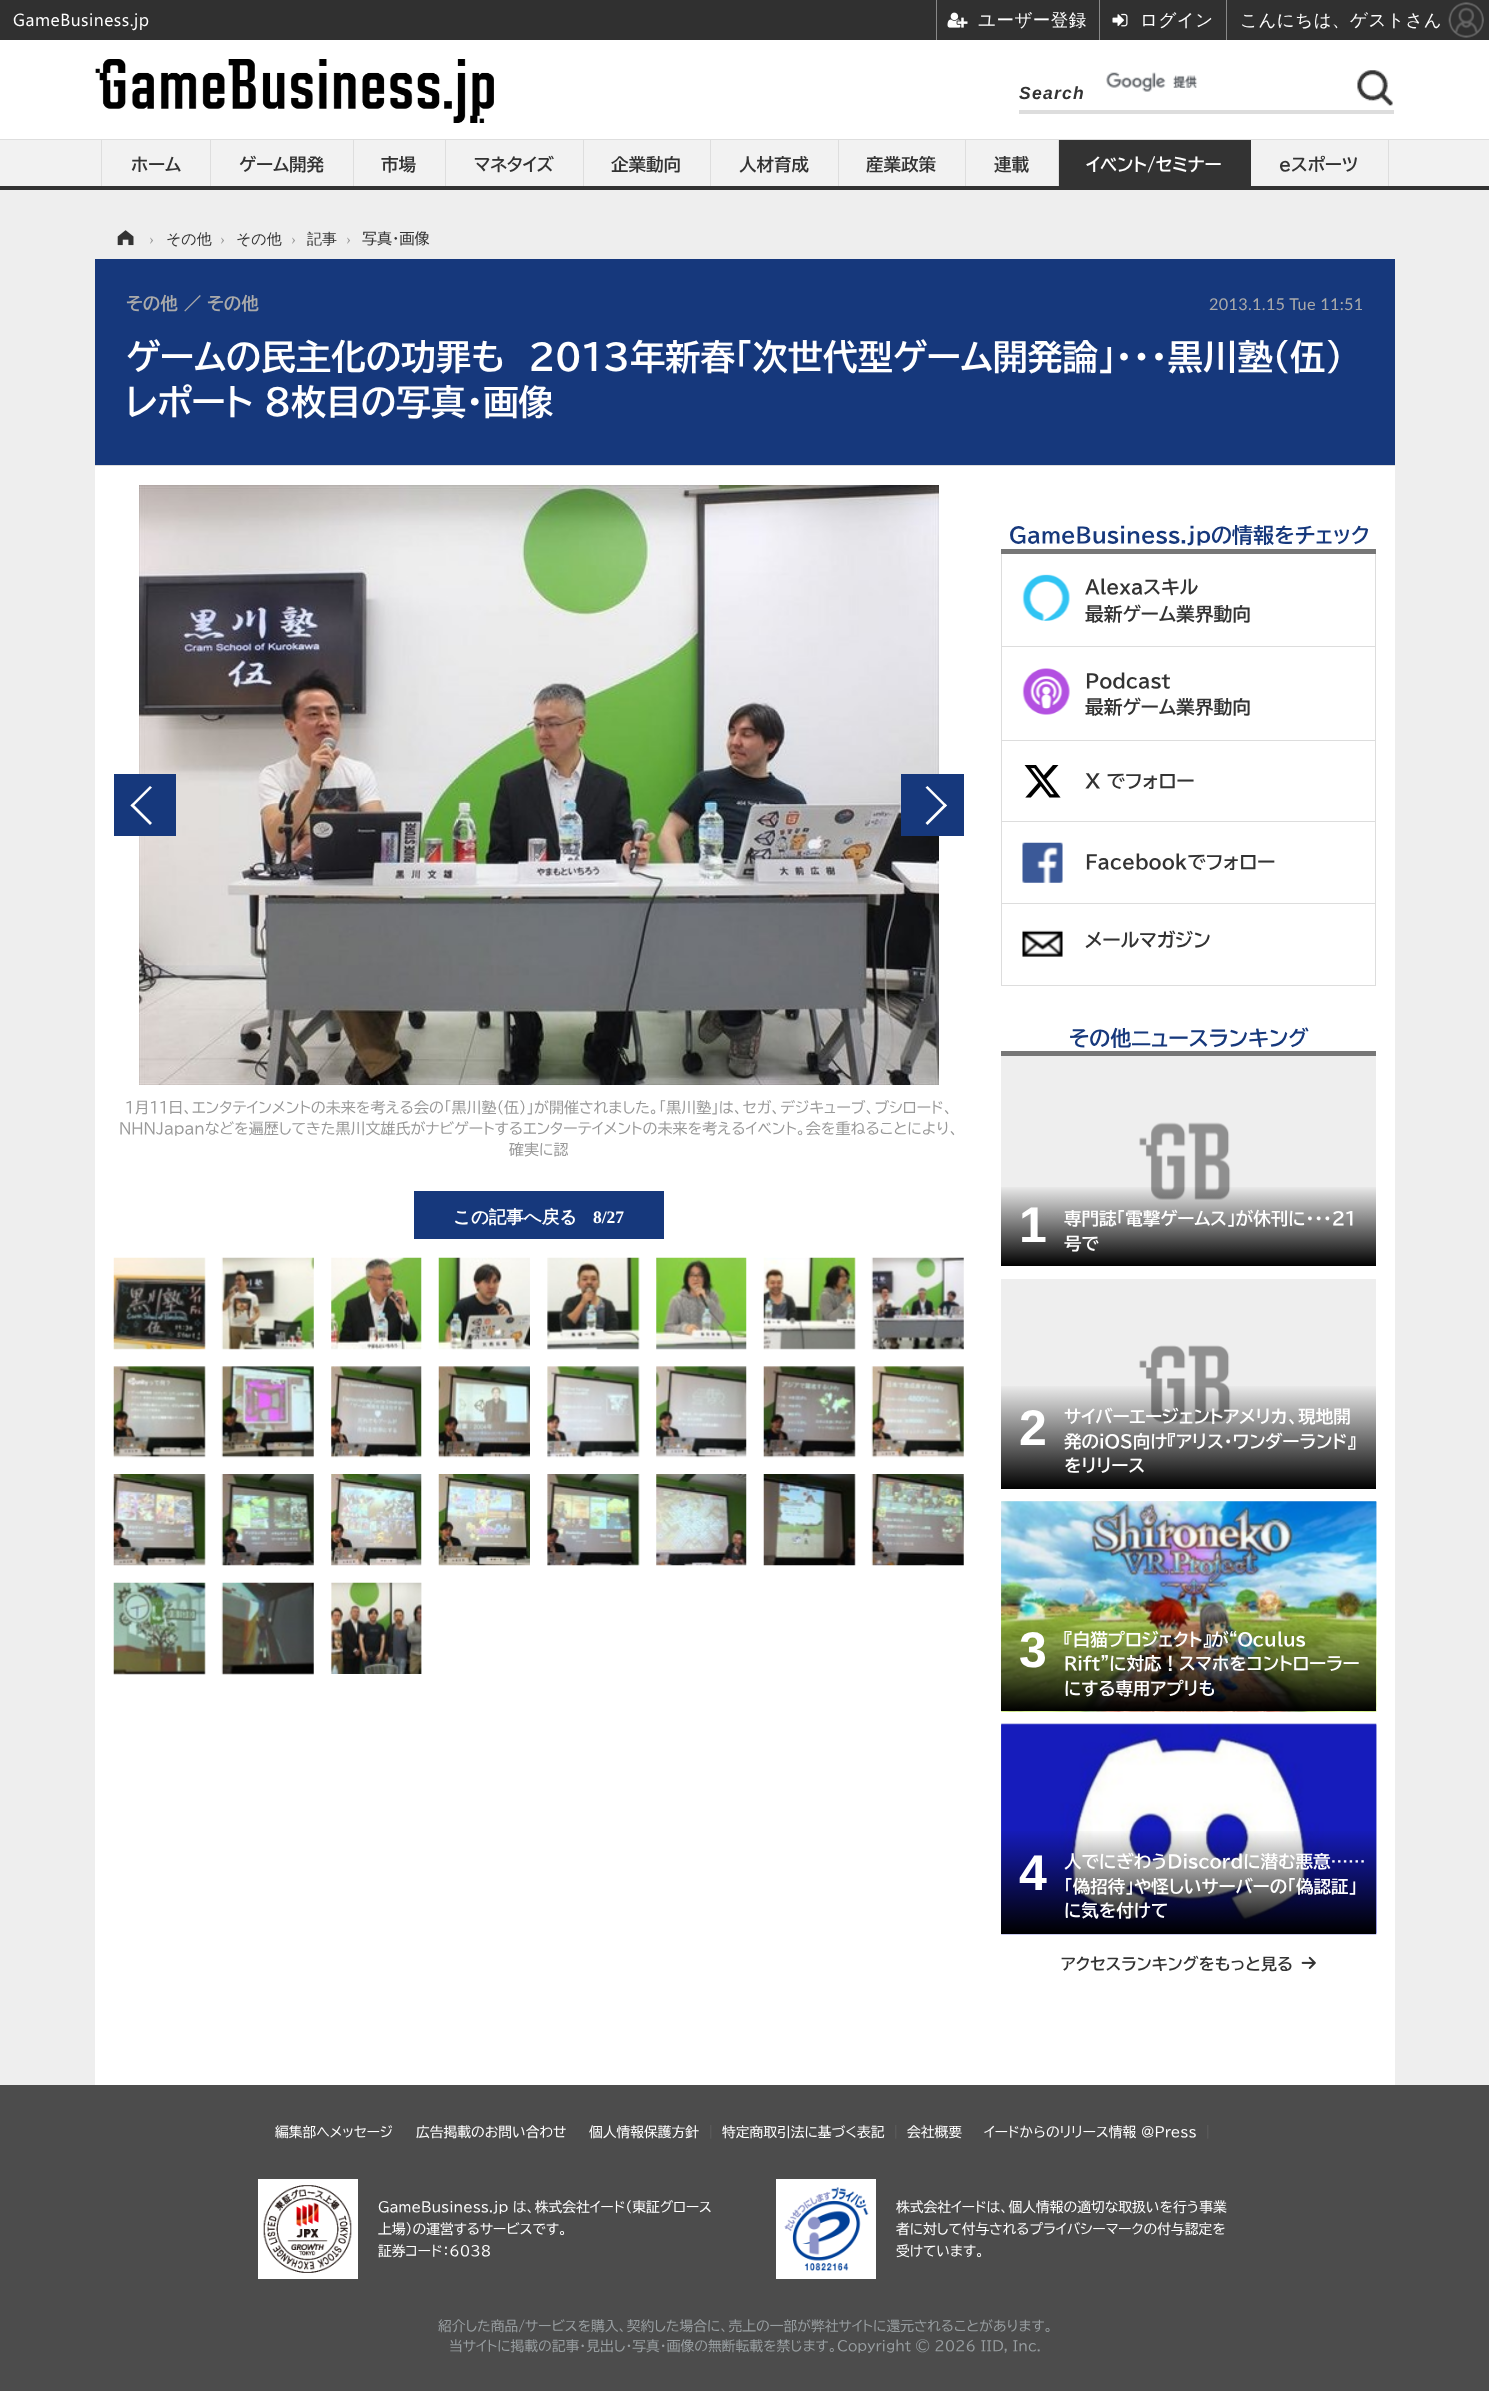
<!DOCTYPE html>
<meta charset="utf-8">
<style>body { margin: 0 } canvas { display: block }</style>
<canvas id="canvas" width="1489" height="2391"></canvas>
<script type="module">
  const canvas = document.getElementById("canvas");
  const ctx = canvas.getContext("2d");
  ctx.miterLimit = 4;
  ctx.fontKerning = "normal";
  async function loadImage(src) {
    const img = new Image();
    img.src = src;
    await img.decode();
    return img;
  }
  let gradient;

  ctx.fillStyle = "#eeeeee";
  ctx.fillRect(0, 0, 1489, 2391);
  ctx.fillStyle = "#303030";
  ctx.fillRect(0, 0, 1489, 40);
  ctx.letterSpacing = "0.5px";
  ctx.font = "17.5px Segoe UI";
  ctx.fillStyle = "#ffffff";
  ctx.fillText("GameBusiness.jp", 13, 26);
  ctx.fillStyle = "#888888";
  ctx.fillRect(936, 0, 1, 40);
  ctx.drawImage(await loadImage("img1.png"), 947, 12, 21, 16);
  ctx.font = "500 17.5px WenQuanYi Zen Hei";
  ctx.fillStyle = "#ffffff";
  ctx.fillText("ユーザー登録", 978, 26);
  ctx.fillStyle = "#888888";
  ctx.fillRect(1226, 0, 1, 40);
  ctx.fillRect(1099, 0, 1, 40);
  ctx.drawImage(await loadImage("img2.png"), 1112, 13, 16, 14);
  ctx.fillStyle = "#ffffff";
  ctx.fillText("ログイン", 1140, 26);
  ctx.fillText("こんにちは、ゲストさん", 1240, 26);
  ctx.drawImage(await loadImage("img3.png"), 1448, 2, 36, 36);
  ctx.fillRect(0, 40, 1489, 99);
  ctx.fillStyle = "#dddddd";
  ctx.fillRect(1019, 110, 375, 4);
  ctx.letterSpacing = "1.25px";
  ctx.font = "italic bold 17.5px Liberation Sans";
  ctx.fillStyle = "#333333";
  ctx.fillText("Search", 1019, 99);
  ctx.drawImage(await loadImage("img4.png"), 1106, 72, 92, 20);
  ctx.drawImage(await loadImage("img5.png"), 1357, 70, 36, 36);
  ctx.drawImage(await loadImage("img6.png"), 95, 59, 399, 64);
  ctx.fillStyle = "#f2f2f2";
  ctx.fillRect(0, 140, 1489, 46);
  ctx.fillStyle = "#dedede";
  ctx.fillRect(0, 139, 1489, 1);
  ctx.fillStyle = "#333333";
  ctx.fillRect(0, 186, 1489, 4);
  ctx.fillStyle = "#dedede";
  ctx.fillRect(210, 140, 1, 46);
  ctx.fillRect(101, 140, 1, 46);
  ctx.letterSpacing = "0px";
  ctx.font = "bold 17.5px BIZ UDPGothic";
  ctx.fillStyle = "#333333";
  ctx.fillText("ホーム", 131, 171);
  ctx.fillStyle = "#dedede";
  ctx.fillRect(353, 140, 1, 46);
  ctx.fillStyle = "#333333";
  ctx.fillText("ゲーム開発", 239, 171);
  ctx.fillStyle = "#dedede";
  ctx.fillRect(445, 140, 1, 46);
  ctx.fillStyle = "#333333";
  ctx.fillText("市場", 381, 171);
  ctx.fillStyle = "#dedede";
  ctx.fillRect(583, 140, 1, 46);
  ctx.fillStyle = "#333333";
  ctx.fillText("マネタイズ", 474, 171);
  ctx.fillStyle = "#dedede";
  ctx.fillRect(710, 140, 1, 46);
  ctx.fillStyle = "#333333";
  ctx.fillText("企業動向", 611, 171);
  ctx.fillStyle = "#dedede";
  ctx.fillRect(838, 140, 1, 46);
  ctx.fillStyle = "#333333";
  ctx.fillText("人材育成", 739, 171);
  ctx.fillStyle = "#dedede";
  ctx.fillRect(965, 140, 1, 46);
  ctx.fillStyle = "#333333";
  ctx.fillText("産業政策", 866, 171);
  ctx.fillStyle = "#dedede";
  ctx.fillRect(1058, 140, 1, 46);
  ctx.fillStyle = "#333333";
  ctx.fillText("連載", 994, 171);
  ctx.fillRect(1059, 140, 192, 46);
  ctx.fillStyle = "#ffffff";
  ctx.fillText("イベント/セミナー", 1086, 171);
  ctx.fillStyle = "#dedede";
  ctx.fillRect(1388, 140, 1, 46);
  ctx.fillStyle = "#333333";
  ctx.fillText("eスポーツ", 1279, 171);
  ctx.drawImage(await loadImage("img7.png"), 117, 230, 17, 16);
  ctx.font = "15px Liberation Serif";
  ctx.fillStyle = "#999999";
  ctx.fillText("›", 149, 244);
  ctx.font = "500 15px WenQuanYi Zen Hei";
  ctx.fillStyle = "#333333";
  ctx.fillText("その他", 166, 244);
  ctx.font = "15px Liberation Serif";
  ctx.fillStyle = "#999999";
  ctx.fillText("›", 220, 244);
  ctx.font = "500 15px WenQuanYi Zen Hei";
  ctx.fillStyle = "#333333";
  ctx.fillText("その他", 236, 244);
  ctx.font = "15px Liberation Serif";
  ctx.fillStyle = "#999999";
  ctx.fillText("›", 291, 244);
  ctx.font = "500 15px WenQuanYi Zen Hei";
  ctx.fillStyle = "#333333";
  ctx.fillText("記事", 307, 244);
  ctx.font = "15px Liberation Serif";
  ctx.fillStyle = "#999999";
  ctx.fillText("›", 346, 244);
  ctx.font = "15px BIZ UDPGothic";
  ctx.fillStyle = "#333333";
  ctx.fillText("写真・画像", 362, 244);
  ctx.fillStyle = "#16387c";
  ctx.fillRect(95, 259, 1300, 206);
  ctx.fillStyle = "#dddddd";
  ctx.fillRect(95, 465, 1300, 1);
  ctx.font = "bold 17.5px BIZ UDPGothic";
  ctx.fillStyle = "#aaaaaa";
  ctx.fillText("その他 ／ その他", 126, 310);
  ctx.letterSpacing = "0.3px";
  ctx.font = "16.25px Lato";
  ctx.fillText("2013.1.15 Tue 11:51", 1209, 310);
  ctx.letterSpacing = "0px";
  ctx.font = "bold 35px BIZ UDPGothic";
  ctx.fillStyle = "#ffffff";
  ctx.fillText("ゲームの民主化の功罪も　2013年新春「次世代型ゲーム開発論」・・・黒川塾（伍）", 126, 370);
  ctx.fillText("レポート 8枚目の写真・画像", 126, 415);
  ctx.fillRect(95, 466, 1300, 1619);
  ctx.drawImage(await loadImage("img8.png"), 139, 485, 800, 600);
  ctx.font = "15px BIZ UDPGothic";
  ctx.fillStyle = "#999999";
  ctx.fillText("1月11日、エンタテインメントの未来を考える会の「黒川塾（伍）」が開催されました。「黒川塾」は、セガ、デジキューブ、ブシロード、", 125, 1113);
  ctx.fillText("NHNJapanなどを遍歴してきた黒川文雄氏がナビゲートするエンターテイメントの未来を考えるイベント。会を重ねることにより、", 119, 1134);
  ctx.fillText("確実に認", 509, 1155);
  ctx.fillStyle = "#16387c";
  ctx.fillRect(114, 774, 62, 62);
  ctx.fillStyle = "#ffffff";
  ctx.beginPath();
  ctx.moveTo(150, 825);
  ctx.lineTo(130.5, 805.5);
  ctx.lineTo(132.5, 803.5);
  ctx.lineTo(152, 823);
  ctx.closePath();
  ctx.fill();
  ctx.beginPath();
  ctx.moveTo(132.5, 807);
  ctx.lineTo(130.5, 805.5);
  ctx.lineTo(150, 786);
  ctx.lineTo(152, 787.5);
  ctx.closePath();
  ctx.fill();
  ctx.fillStyle = "#16387c";
  ctx.fillRect(901, 774, 63, 62);
  ctx.fillStyle = "#ffffff";
  ctx.beginPath();
  ctx.moveTo(927.5, 786);
  ctx.lineTo(947, 805.5);
  ctx.lineTo(945, 807);
  ctx.lineTo(925.5, 787.5);
  ctx.closePath();
  ctx.fill();
  ctx.beginPath();
  ctx.moveTo(945, 803.5);
  ctx.lineTo(947, 805.5);
  ctx.lineTo(927.5, 825);
  ctx.lineTo(925.5, 823);
  ctx.closePath();
  ctx.fill();
  ctx.fillStyle = "#16387c";
  ctx.fillRect(414, 1191, 250, 48);
  ctx.font = "bold 17.5px WenQuanYi Zen Hei";
  ctx.fillStyle = "#ffffff";
  ctx.fillText("この記事へ戻る", 453, 1223);
  ctx.font = "bold 17.5px Liberation Serif";
  ctx.fillText("8/27", 593, 1223);
  ctx.drawImage(await loadImage("img9.png"), 113, 1257, 93, 93);
  ctx.drawImage(await loadImage("img10.png"), 221, 1257, 93, 93);
  ctx.drawImage(await loadImage("img11.png"), 331, 1257, 91, 93);
  ctx.drawImage(await loadImage("img12.png"), 438, 1257, 92, 93);
  ctx.drawImage(await loadImage("img13.png"), 547, 1257, 93, 93);
  ctx.drawImage(await loadImage("img14.png"), 656, 1257, 91, 93);
  ctx.drawImage(await loadImage("img15.png"), 763, 1257, 93, 93);
  ctx.drawImage(await loadImage("img16.png"), 871, 1257, 93, 93);
  ctx.drawImage(await loadImage("img17.png"), 113, 1366, 93, 92);
  ctx.drawImage(await loadImage("img18.png"), 221, 1366, 93, 92);
  ctx.drawImage(await loadImage("img19.png"), 331, 1366, 91, 92);
  ctx.drawImage(await loadImage("img20.png"), 438, 1366, 92, 92);
  ctx.drawImage(await loadImage("img21.png"), 547, 1366, 93, 92);
  ctx.drawImage(await loadImage("img22.png"), 656, 1366, 91, 92);
  ctx.drawImage(await loadImage("img23.png"), 763, 1366, 93, 92);
  ctx.drawImage(await loadImage("img24.png"), 871, 1366, 93, 92);
  ctx.drawImage(await loadImage("img25.png"), 113, 1474, 93, 92);
  ctx.drawImage(await loadImage("img26.png"), 221, 1474, 93, 92);
  ctx.drawImage(await loadImage("img27.png"), 331, 1474, 91, 92);
  ctx.drawImage(await loadImage("img28.png"), 438, 1474, 92, 92);
  ctx.drawImage(await loadImage("img29.png"), 547, 1474, 93, 92);
  ctx.drawImage(await loadImage("img30.png"), 656, 1474, 91, 92);
  ctx.drawImage(await loadImage("img31.png"), 763, 1474, 93, 92);
  ctx.drawImage(await loadImage("img32.png"), 871, 1474, 93, 92);
  ctx.drawImage(await loadImage("img33.png"), 113, 1582, 93, 93);
  ctx.drawImage(await loadImage("img34.png"), 221, 1582, 93, 93);
  ctx.drawImage(await loadImage("img35.png"), 330, 1582, 92, 92);
  ctx.fillStyle = "#777777";
  ctx.fillRect(1001, 549, 375, 5);
  ctx.font = "bold 21px BIZ UDPGothic";
  ctx.fillStyle = "#16387c";
  ctx.fillText("GameBusiness.jpの情報をチェック", 1009, 543);
  ctx.fillStyle = "#dddddd";
  ctx.fillRect(1375, 554, 1, 432);
  ctx.fillRect(1001, 646, 375, 1);
  ctx.fillRect(1001, 554, 1, 94);
  ctx.drawImage(await loadImage("img36.png"), 1022, 574, 48, 47);
  ctx.font = "bold 18.75px BIZ UDPGothic";
  ctx.fillStyle = "#333333";
  ctx.fillText("Alexaスキル", 1085, 594);
  ctx.fillText("最新ゲーム業界動向", 1085, 621);
  ctx.fillStyle = "#dddddd";
  ctx.fillRect(1001, 740, 375, 1);
  ctx.fillRect(1001, 648, 1, 93);
  ctx.drawImage(await loadImage("img37.png"), 1022, 668, 48, 47);
  ctx.fillStyle = "#333333";
  ctx.fillText("Podcast", 1085, 688);
  ctx.fillText("最新ゲーム業界動向", 1085, 714);
  ctx.fillStyle = "#dddddd";
  ctx.fillRect(1001, 821, 375, 1);
  ctx.fillRect(1001, 741, 1, 82);
  ctx.drawImage(await loadImage("img38.png"), 1024, 765, 37, 33);
  ctx.fillStyle = "#333333";
  ctx.fillText("X でフォロー", 1085, 788);
  ctx.fillStyle = "#dddddd";
  ctx.fillRect(1001, 903, 375, 1);
  ctx.fillRect(1001, 823, 1, 81);
  ctx.drawImage(await loadImage("img39.png"), 1022, 842, 41, 41);
  ctx.fillStyle = "#333333";
  ctx.fillText("Facebookでフォロー", 1085, 869);
  ctx.fillStyle = "#dddddd";
  ctx.fillRect(1001, 985, 375, 1);
  ctx.fillRect(1001, 904, 1, 82);
  ctx.drawImage(await loadImage("img40.png"), 1022, 930, 41, 27);
  ctx.fillStyle = "#333333";
  ctx.fillText("メールマガジン", 1085, 947);
  ctx.fillStyle = "#777777";
  ctx.fillRect(1001, 1051, 375, 5);
  ctx.font = "bold 21px BIZ UDPGothic";
  ctx.fillStyle = "#16387c";
  ctx.fillText("その他ニュースランキング", 1069, 1046);
  ctx.fillStyle = "#eeeeee";
  ctx.fillRect(1001, 1056, 375, 210);
  ctx.drawImage(await loadImage("img41.png"), 1139, 1122, 92, 78);
  gradient = ctx.createLinearGradient(1189, 1185, 1189, 1266);
  gradient.addColorStop(0, "rgba(0, 0, 0, 0)");
  gradient.addColorStop(1, "#000000");
  ctx.fillStyle = gradient;
  ctx.fillRect(1001, 1187, 375, 79);
  ctx.font = "bold 50px Liberation Sans";
  ctx.fillStyle = "#ffffff";
  ctx.fillText("1", 1019, 1242);
  ctx.font = "bold 17.5px BIZ UDPGothic";
  ctx.fillText("専門誌「電撃ゲームス」が休刊に・・・21", 1064, 1225);
  ctx.fillText("号で", 1064, 1250);
  ctx.fillStyle = "#eeeeee";
  ctx.fillRect(1001, 1279, 375, 209);
  ctx.drawImage(await loadImage("img42.png"), 1139, 1345, 92, 77);
  gradient = ctx.createLinearGradient(1189, 1384, 1189, 1489);
  gradient.addColorStop(0, "rgba(0, 0, 0, 0)");
  gradient.addColorStop(1, "#000000");
  ctx.fillStyle = gradient;
  ctx.fillRect(1001, 1386, 375, 103);
  ctx.font = "bold 50px Liberation Sans";
  ctx.fillStyle = "#ffffff";
  ctx.fillText("2", 1019, 1445);
  ctx.font = "bold 17.5px BIZ UDPGothic";
  ctx.fillText("サイバーエージェントアメリカ、現地開", 1064, 1423);
  ctx.fillText("発のiOS向け『アリス・ワンダーランド』", 1064, 1448);
  ctx.fillText("をリリース", 1064, 1472);
  ctx.fillStyle = "#eeeeee";
  ctx.fillRect(1001, 1501, 375, 209);
  ctx.drawImage(await loadImage("img43.png"), 1001, 1501, 376, 211);
  ctx.drawImage(await loadImage("img44.png"), 1001, 1501, 376, 211);
  gradient = ctx.createLinearGradient(1189, 1606, 1189, 1711);
  gradient.addColorStop(0, "rgba(0, 0, 0, 0)");
  gradient.addColorStop(1, "#000000");
  ctx.fillStyle = gradient;
  ctx.fillRect(1001, 1608, 375, 103);
  ctx.font = "bold 50px Liberation Sans";
  ctx.fillStyle = "#ffffff";
  ctx.fillText("3", 1019, 1667);
  ctx.font = "bold 17.5px BIZ UDPGothic";
  ctx.fillText("『白猫プロジェクト』が“Oculus", 1064, 1646);
  ctx.fillText("Rift”に対応！スマホをコントローラー", 1064, 1670);
  ctx.fillText("にする専用アプリも", 1064, 1695);
  ctx.drawImage(await loadImage("img45.png"), 1001, 1723, 376, 212);
  ctx.drawImage(await loadImage("img46.png"), 1001, 1723, 376, 212);
  gradient = ctx.createLinearGradient(1189, 1829, 1189, 1934);
  gradient.addColorStop(0, "rgba(0, 0, 0, 0)");
  gradient.addColorStop(1, "#000000");
  ctx.fillStyle = gradient;
  ctx.fillRect(1001, 1831, 375, 103);
  ctx.font = "bold 50px Liberation Sans";
  ctx.fillStyle = "#ffffff";
  ctx.fillText("4", 1019, 1890);
  ctx.font = "bold 17.5px BIZ UDPGothic";
  ctx.fillText("人でにぎわうDiscordに潜む悪意……", 1064, 1868);
  ctx.fillText("「偽招待」や怪しいサーバーの「偽認証」", 1064, 1893);
  ctx.fillText("に気を付けて", 1064, 1917);
  ctx.font = "bold 16.25px BIZ UDPGothic";
  ctx.fillStyle = "#333333";
  ctx.fillText("アクセスランキングをもっと見る", 1061, 1970);
  ctx.drawImage(await loadImage("img47.png"), 1301, 1956, 15, 13);
  ctx.fillStyle = "#4c4c4c";
  ctx.fillRect(0, 2085, 1489, 306);
  ctx.font = "13.75px BIZ UDPGothic";
  ctx.fillStyle = "#ffffff";
  ctx.fillText("編集部へメッセージ", 275, 2137);
  ctx.fillText("広告掲載のお問い合わせ", 416, 2137);
  ctx.fillText("個人情報保護方針", 589, 2137);
  ctx.fillStyle = "#666666";
  ctx.fillText("｜", 704, 2137);
  ctx.fillStyle = "#ffffff";
  ctx.fillText("特定商取引法に基づく表記", 722, 2137);
  ctx.fillStyle = "#666666";
  ctx.fillText("｜", 889, 2137);
  ctx.fillStyle = "#ffffff";
  ctx.fillText("会社概要", 907, 2137);
  ctx.fillText("イードからのリリース情報", 984, 2137);
  ctx.fillText("@Press", 1141, 2137);
  ctx.fillStyle = "#666666";
  ctx.fillText("｜", 1201, 2137);
  ctx.fillStyle = "#ffffff";
  ctx.fillRect(258, 2179, 100, 100);
  ctx.drawImage(await loadImage("img48.png"), 263, 2185, 89, 88);
  ctx.fillText("GameBusiness.jp は、株式会社イード（東証グロース", 378, 2212);
  ctx.fillText("上場）の運営するサービスです。", 378, 2234);
  ctx.fillText("証券コード：6038", 378, 2256);
  ctx.fillRect(776, 2179, 100, 100);
  ctx.drawImage(await loadImage("img49.png"), 784, 2187, 85, 84);
  ctx.fillText("株式会社イードは、個人情報の適切な取扱いを行う事業", 896, 2212);
  ctx.fillText("者に対して付与されるプライバシーマークの付与認定を", 896, 2234);
  ctx.fillText("受けています。", 896, 2256);
  ctx.fillStyle = "#989ea1";
  ctx.fillText("紹介した商品/サービスを購入、契約した場合に、売上の一部が弊社サイトに還元されることがあります。", 438, 2331);
  ctx.fillText("当サイトに掲載の記事・見出し・写真・画像の無断転載を禁じます。Copyright © 2026 IID, Inc.", 449, 2351);
</script>
